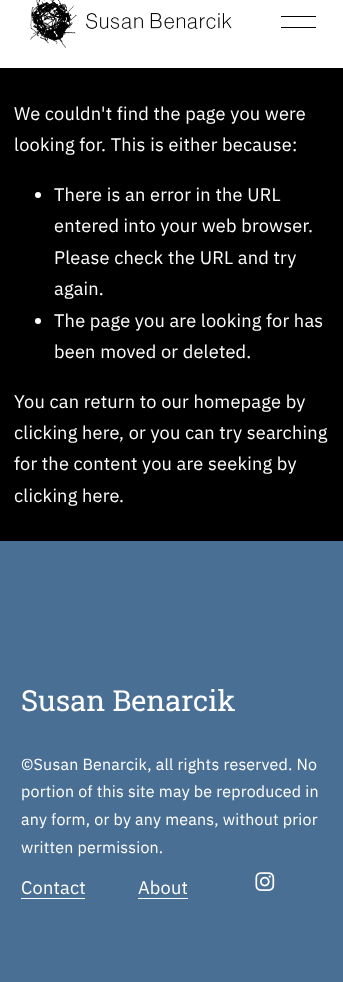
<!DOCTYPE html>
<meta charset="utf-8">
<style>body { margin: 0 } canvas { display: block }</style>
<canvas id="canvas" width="343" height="982"></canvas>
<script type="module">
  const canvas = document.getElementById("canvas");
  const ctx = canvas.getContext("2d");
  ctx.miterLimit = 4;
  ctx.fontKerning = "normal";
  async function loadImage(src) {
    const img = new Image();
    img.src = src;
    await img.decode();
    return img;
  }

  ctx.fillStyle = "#000000";
  ctx.fillRect(0, 0, 343, 982);
  ctx.fillStyle = "#ffffff";
  ctx.fillRect(0, 0, 343, 68);
  ctx.drawImage(await loadImage("img1.png"), 30, 0, 202, 48);
  ctx.fillStyle = "#000000";
  ctx.fillRect(281, 16, 35, 1);
  ctx.fillRect(281, 27, 35, 1);
  ctx.letterSpacing = "0.2px";
  ctx.font = "18.2px IBM Plex Sans";
  ctx.fillStyle = "#ffffff";
  ctx.fillText("We couldn't find the page you were", 14, 120);
  ctx.fillText("looking for. This is either because:", 14, 151);
  ctx.beginPath();
  ctx.arc(38, 195, 3, 0, Math.PI * 2);
  ctx.fill();
  ctx.fillText("There is an error in the URL", 54, 201);
  ctx.fillText("entered into your web browser.", 54, 232);
  ctx.fillText("Please check the URL and try", 54, 264);
  ctx.fillText("again.", 54, 295);
  ctx.beginPath();
  ctx.arc(38, 321, 3, 0, Math.PI * 2);
  ctx.fill();
  ctx.fillText("The page you are looking for has", 54, 327);
  ctx.fillText("been moved or deleted.", 54, 358);
  ctx.fillText("You can return to our homepage by", 14, 408);
  ctx.fillText("clicking here", 14, 439);
  ctx.fillText(", or you can try searching", 119, 439);
  ctx.fillText("for the content you are seeking by", 14, 470);
  ctx.fillText("clicking here", 14, 502);
  ctx.fillText(".", 119, 502);
  ctx.fillStyle = "#496f94";
  ctx.fillRect(0, 541, 343, 441);
  ctx.letterSpacing = "0px";
  ctx.font = "29px Roboto Slab";
  ctx.fillStyle = "#ffffff";
  ctx.fillText("Susan Benarcik", 21, 711);
  ctx.letterSpacing = "0.2px";
  ctx.font = "16px IBM Plex Sans";
  ctx.fillText("©Susan Benarcik, all rights reserved. No", 21, 770);
  ctx.fillText("portion of this site may be reproduced in", 21, 797);
  ctx.fillText("any form, or by any means, without prior", 21, 825);
  ctx.fillText("written permission.", 21, 853);
  ctx.font = "18.2px IBM Plex Sans";
  ctx.fillText("Contact", 21, 894);
  ctx.fillRect(21, 898, 64, 1);
  ctx.fillText("About", 138, 894);
  ctx.fillRect(138, 898, 50, 1);
  ctx.drawImage(await loadImage("img2.png"), 255, 872, 20, 19);
</script>
